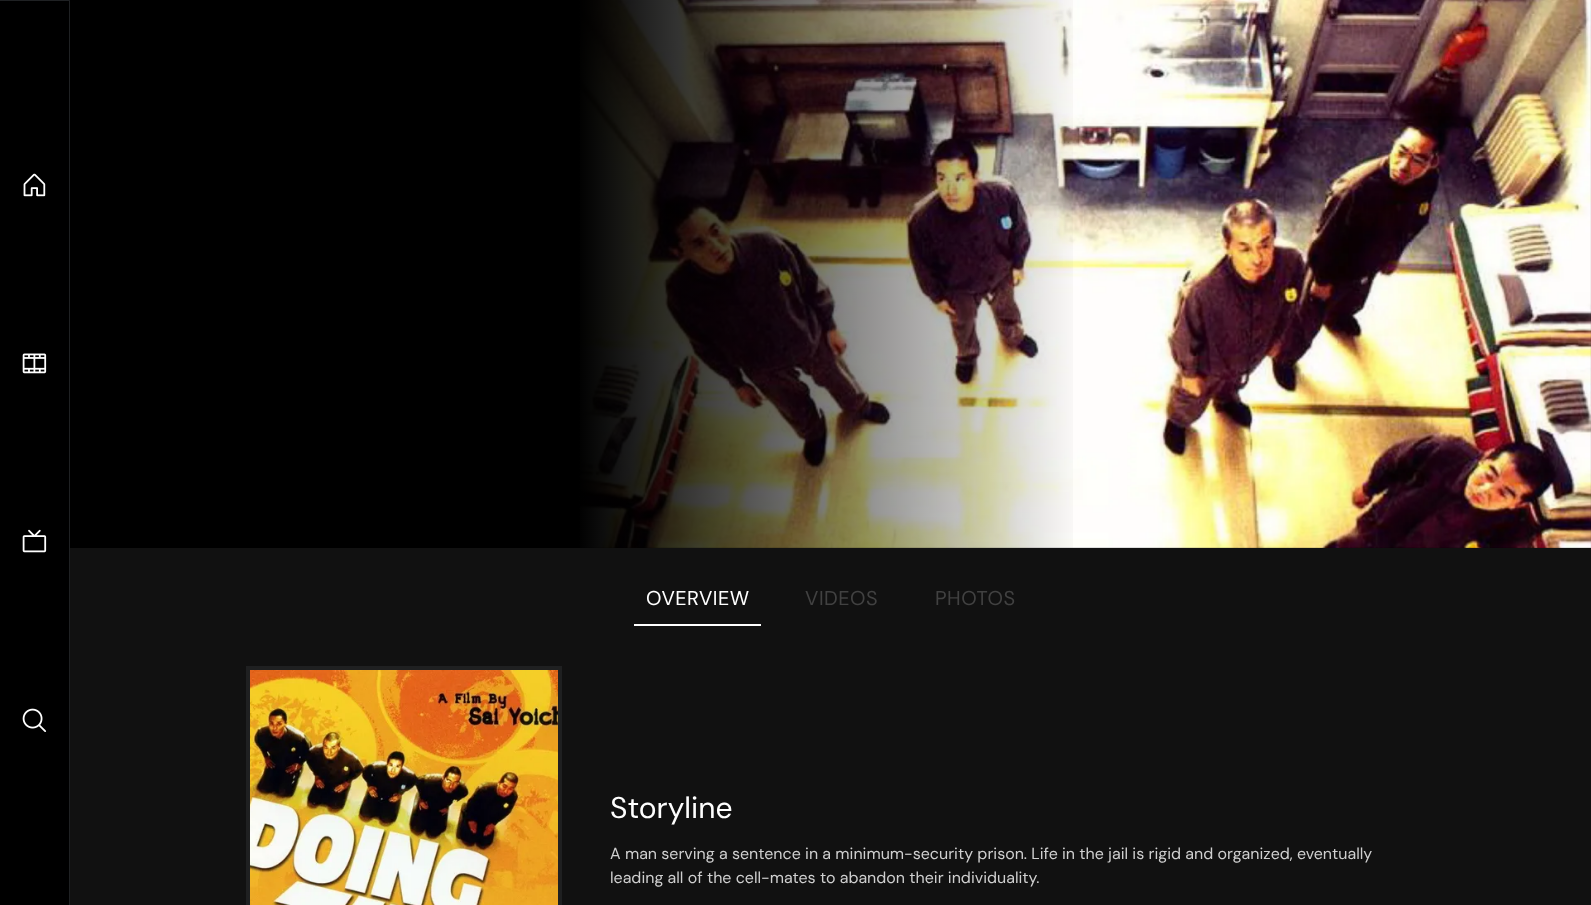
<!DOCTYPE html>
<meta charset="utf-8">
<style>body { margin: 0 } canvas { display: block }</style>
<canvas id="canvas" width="1591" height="905"></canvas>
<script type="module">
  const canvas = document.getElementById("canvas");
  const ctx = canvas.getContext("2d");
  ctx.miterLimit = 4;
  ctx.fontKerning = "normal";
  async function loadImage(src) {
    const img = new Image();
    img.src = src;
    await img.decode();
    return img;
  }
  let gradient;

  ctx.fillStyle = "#111111";
  ctx.fillRect(0, 0, 1591, 905);
  ctx.fillStyle = "#000000";
  ctx.fillRect(0, 0, 70, 905);
  ctx.fillStyle = "#1f2123";
  ctx.beginPath();
  ctx.moveTo(0, 0);
  ctx.lineTo(70, 0);
  ctx.lineTo(69, 1);
  ctx.lineTo(0, 1);
  ctx.closePath();
  ctx.fill();
  ctx.fillStyle = "rgba(156, 163, 175, 0.2)";
  ctx.beginPath();
  ctx.moveTo(70, 0);
  ctx.lineTo(70, 905);
  ctx.lineTo(69, 905);
  ctx.lineTo(69, 1);
  ctx.closePath();
  ctx.fill();
  ctx.drawImage(await loadImage("img1.png"), 23, 173, 23, 24);
  ctx.drawImage(await loadImage("img2.png"), 22, 353, 25, 21);
  ctx.drawImage(await loadImage("img3.png"), 22, 529, 25, 24);
  ctx.drawImage(await loadImage("img4.png"), 22, 708, 25, 24);
  ctx.fillStyle = "#000000";
  ctx.fillRect(580, 0, 1011, 548);
  ctx.drawImage(await loadImage("img5.png"), 580, 0, 1011, 548);
  gradient = ctx.createLinearGradient(70, 274, 1084, 274);
  gradient.addColorStop(0, "#000000");
  gradient.addColorStop(0.5, "#000000");
  gradient.addColorStop(1, "rgba(0, 0, 0, 0)");
  ctx.fillStyle = gradient;
  ctx.fillRect(70, 0, 1003, 548);
  ctx.fillStyle = "#ffffff";
  ctx.fillRect(634, 624, 127, 2);
  ctx.letterSpacing = "0.5px";
  ctx.font = "20px DM Sans";
  ctx.fillText("OVERVIEW", 646, 605);
  ctx.fillStyle = "#414141";
  ctx.fillText("VIDEOS", 805, 605);
  ctx.fillText("PHOTOS", 935, 605);
  ctx.strokeStyle = "#1f2021";
  ctx.lineWidth = 4;
  ctx.strokeRect(248, 668, 312, 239);
  ctx.drawImage(await loadImage("img6.png"), 250, 670, 308, 235);
  ctx.letterSpacing = "0px";
  ctx.font = "30px DM Sans";
  ctx.fillStyle = "#ffffff";
  ctx.fillText("Storyline", 610, 818);
  ctx.font = "16px DM Sans";
  ctx.fillStyle = "#cfcfcf";
  ctx.fillText("A man serving a sentence in a minimum-security prison. Life in the jail is rigid and organized, eventually", 610, 859);
  ctx.fillText("leading all of the cell-mates to abandon their individuality.", 610, 883);
</script>
